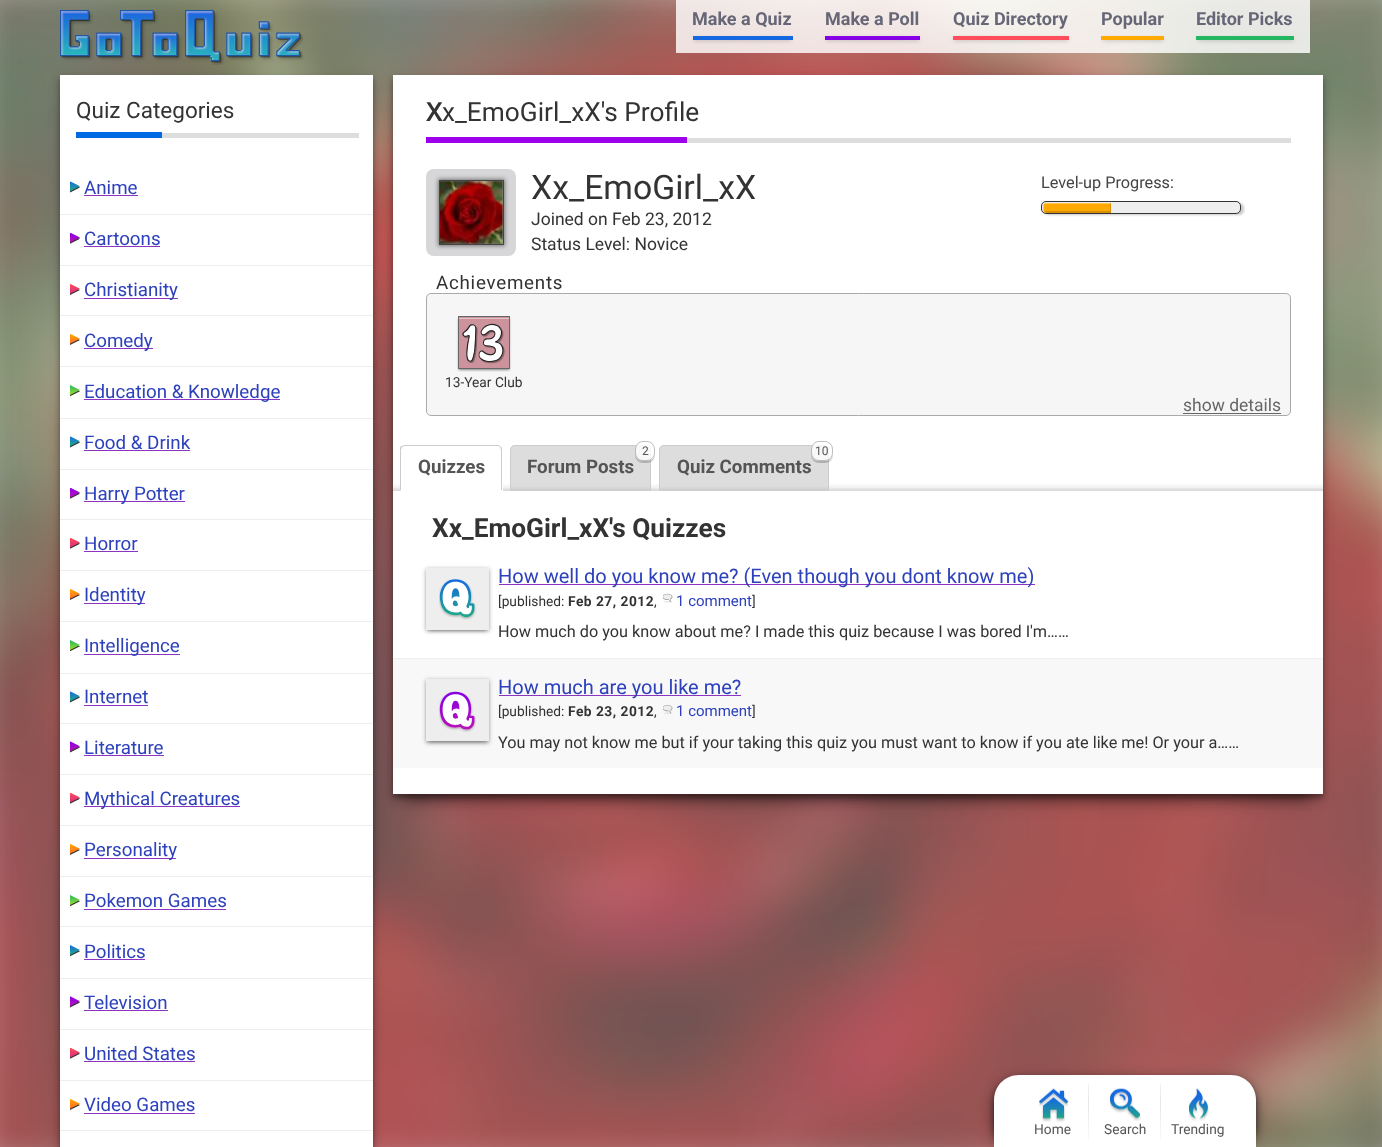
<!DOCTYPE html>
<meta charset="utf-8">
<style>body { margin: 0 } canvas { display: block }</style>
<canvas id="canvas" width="1382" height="1147"></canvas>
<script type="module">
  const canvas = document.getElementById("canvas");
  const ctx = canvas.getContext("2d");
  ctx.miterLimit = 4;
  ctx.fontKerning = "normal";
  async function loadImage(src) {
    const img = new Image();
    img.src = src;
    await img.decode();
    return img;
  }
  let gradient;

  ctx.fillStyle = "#ffffff";
  ctx.fillRect(0, 0, 1382, 1147);
  gradient = ctx.createLinearGradient(691, 0, 691, 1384);
  gradient.addColorStop(0, "#fcfcfc");
  gradient.addColorStop(0.08, "#eeeeee");
  ctx.fillStyle = gradient;
  ctx.fillRect(0, 0, 1382, 1147);
  ctx.drawImage(await loadImage("img1.png"), 0, 0, 1382, 1147);
  ctx.fillStyle = "rgba(0, 0, 0, 0.16)";
  ctx.filter = "blur(5.5px)";
  ctx.beginPath();
  ctx.rect(59, 78, 315, 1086);
  ctx.fill();
  ctx.filter = "none";
  ctx.drawImage(await loadImage("img2.png"), 60, 10, 244, 55);
  ctx.fillStyle = "rgba(255, 255, 255, 0.82)";
  ctx.fillRect(676, 0, 634, 53);
  ctx.font = "bold 18px Roboto";
  ctx.fillStyle = "#666677";
  ctx.fillText("Make a Quiz", 692, 25);
  ctx.fillStyle = "#666666";
  ctx.filter = "blur(2px)";
  ctx.beginPath();
  ctx.rect(694, 39, 97, 1);
  ctx.fill();
  ctx.filter = "none";
  ctx.fillStyle = "#1569e0";
  ctx.fillRect(693, 36, 100, 4);
  ctx.fillStyle = "#666677";
  ctx.fillText("Make a Poll", 825, 25);
  ctx.fillStyle = "#666666";
  ctx.filter = "blur(2px)";
  ctx.beginPath();
  ctx.rect(826, 39, 93, 1);
  ctx.fill();
  ctx.filter = "none";
  ctx.fillStyle = "#8600e6";
  ctx.fillRect(825, 36, 95, 4);
  ctx.fillStyle = "#666677";
  ctx.fillText("Quiz Directory", 953, 25);
  ctx.fillStyle = "#666666";
  ctx.filter = "blur(2px)";
  ctx.beginPath();
  ctx.rect(954, 39, 114, 1);
  ctx.fill();
  ctx.filter = "none";
  ctx.fillStyle = "#ff4d5b";
  ctx.fillRect(953, 36, 116, 4);
  ctx.fillStyle = "#666677";
  ctx.fillText("Popular", 1101, 25);
  ctx.fillStyle = "#666666";
  ctx.filter = "blur(2px)";
  ctx.beginPath();
  ctx.rect(1103, 39, 60, 1);
  ctx.fill();
  ctx.filter = "none";
  ctx.fillStyle = "#ffaa00";
  ctx.fillRect(1101, 36, 63, 4);
  ctx.fillStyle = "#666677";
  ctx.fillText("Editor Picks", 1196, 25);
  ctx.fillStyle = "#666666";
  ctx.filter = "blur(2px)";
  ctx.beginPath();
  ctx.rect(1198, 39, 95, 1);
  ctx.fill();
  ctx.filter = "none";
  ctx.fillStyle = "#25b664";
  ctx.fillRect(1196, 36, 98, 4);
  ctx.fillStyle = "rgba(0, 0, 0, 0.3)";
  ctx.filter = "blur(2.5px)";
  ctx.beginPath();
  ctx.rect(60, 79, 313, 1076);
  ctx.fill();
  ctx.filter = "none";
  ctx.fillStyle = "rgba(0, 0, 0, 0.4)";
  ctx.filter = "blur(8px)";
  ctx.beginPath();
  ctx.rect(71, 105, 290, 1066);
  ctx.fill();
  ctx.filter = "none";
  ctx.fillStyle = "#ffffff";
  ctx.fillRect(60, 75, 313, 1072);
  ctx.font = "22.5px Roboto";
  ctx.fillStyle = "#333333";
  ctx.fillText("Quiz Categories", 76, 118);
  ctx.fillStyle = "#dddddd";
  ctx.fillRect(162, 133, 197, 5);
  ctx.fillStyle = "#0069e4";
  ctx.fillRect(76, 132, 86, 6);
  ctx.fillStyle = "#eeeeee";
  ctx.fillRect(60, 214, 313, 1);
  ctx.drawImage(await loadImage("img3.png"), 70, 181, 10, 12);
  ctx.font = "18.75px Roboto";
  ctx.fillStyle = "#2d41bc";
  ctx.fillText("Anime", 84, 194);
  ctx.fillStyle = "#8b34bf";
  ctx.fillRect(84, 195, 54, 1);
  ctx.fillStyle = "#eeeeee";
  ctx.fillRect(60, 265, 313, 1);
  ctx.drawImage(await loadImage("img4.png"), 70, 233, 10, 11);
  ctx.fillStyle = "#2d41bc";
  ctx.fillText("Cartoons", 84, 245);
  ctx.fillStyle = "#8b34bf";
  ctx.fillRect(84, 246, 76, 1);
  ctx.fillStyle = "#eeeeee";
  ctx.fillRect(60, 315, 313, 1);
  ctx.drawImage(await loadImage("img5.png"), 70, 284, 10, 11);
  ctx.fillStyle = "#8b34bf";
  ctx.fillRect(84, 298, 94, 1);
  ctx.fillStyle = "#2d41bc";
  ctx.fillText("Christianity", 84, 296);
  ctx.fillStyle = "#eeeeee";
  ctx.fillRect(60, 366, 313, 1);
  ctx.drawImage(await loadImage("img6.png"), 70, 334, 10, 11);
  ctx.fillStyle = "#8b34bf";
  ctx.fillRect(84, 348, 69, 1);
  ctx.fillStyle = "#2d41bc";
  ctx.fillText("Comedy", 84, 347);
  ctx.fillStyle = "#eeeeee";
  ctx.fillRect(60, 418, 313, 1);
  ctx.drawImage(await loadImage("img7.png"), 70, 385, 10, 12);
  ctx.fillStyle = "#8b34bf";
  ctx.fillRect(84, 399, 196, 1);
  ctx.fillStyle = "#2d41bc";
  ctx.fillText("Education & Knowledge", 84, 398);
  ctx.fillStyle = "#eeeeee";
  ctx.fillRect(60, 469, 313, 1);
  ctx.drawImage(await loadImage("img8.png"), 70, 436, 10, 12);
  ctx.fillStyle = "#2d41bc";
  ctx.fillText("Food & Drink", 84, 449);
  ctx.fillStyle = "#8b34bf";
  ctx.fillRect(84, 450, 106, 1);
  ctx.fillStyle = "#eeeeee";
  ctx.fillRect(60, 519, 313, 1);
  ctx.drawImage(await loadImage("img9.png"), 70, 488, 10, 11);
  ctx.fillStyle = "#8b34bf";
  ctx.fillRect(84, 501, 101, 1);
  ctx.fillStyle = "#2d41bc";
  ctx.fillText("Harry Potter", 84, 500);
  ctx.fillStyle = "#eeeeee";
  ctx.fillRect(60, 570, 313, 1);
  ctx.drawImage(await loadImage("img10.png"), 70, 538, 10, 11);
  ctx.fillStyle = "#2d41bc";
  ctx.fillText("Horror", 84, 550);
  ctx.fillStyle = "#8b34bf";
  ctx.fillRect(84, 551, 54, 1);
  ctx.fillStyle = "#eeeeee";
  ctx.fillRect(60, 621, 313, 1);
  ctx.drawImage(await loadImage("img11.png"), 70, 589, 10, 11);
  ctx.fillStyle = "#8b34bf";
  ctx.fillRect(84, 603, 61, 1);
  ctx.fillStyle = "#2d41bc";
  ctx.fillText("Identity", 84, 601);
  ctx.fillStyle = "#eeeeee";
  ctx.fillRect(60, 673, 313, 1);
  ctx.drawImage(await loadImage("img12.png"), 70, 640, 10, 12);
  ctx.fillStyle = "#8b34bf";
  ctx.fillRect(84, 654, 96, 1);
  ctx.fillStyle = "#2d41bc";
  ctx.fillText("Intelligence", 84, 652);
  ctx.fillStyle = "#eeeeee";
  ctx.fillRect(60, 723, 313, 1);
  ctx.drawImage(await loadImage("img13.png"), 70, 691, 10, 12);
  ctx.fillStyle = "#2d41bc";
  ctx.fillText("Internet", 84, 703);
  ctx.fillStyle = "#8b34bf";
  ctx.fillRect(84, 705, 64, 1);
  ctx.fillStyle = "#eeeeee";
  ctx.fillRect(60, 774, 313, 1);
  ctx.drawImage(await loadImage("img14.png"), 70, 741, 10, 12);
  ctx.fillStyle = "#2d41bc";
  ctx.fillText("Literature", 84, 754);
  ctx.fillStyle = "#8b34bf";
  ctx.fillRect(84, 755, 80, 1);
  ctx.fillStyle = "#eeeeee";
  ctx.fillRect(60, 825, 313, 1);
  ctx.drawImage(await loadImage("img15.png"), 70, 793, 10, 11);
  ctx.fillStyle = "#8b34bf";
  ctx.fillRect(84, 806, 156, 1);
  ctx.fillStyle = "#2d41bc";
  ctx.fillText("Mythical Creatures", 84, 805);
  ctx.fillStyle = "#eeeeee";
  ctx.fillRect(60, 876, 313, 1);
  ctx.drawImage(await loadImage("img16.png"), 70, 844, 10, 11);
  ctx.fillStyle = "#8b34bf";
  ctx.fillRect(84, 858, 92, 1);
  ctx.fillStyle = "#2d41bc";
  ctx.fillText("Personality", 84, 856);
  ctx.fillStyle = "#eeeeee";
  ctx.fillRect(60, 926, 313, 1);
  ctx.drawImage(await loadImage("img17.png"), 70, 895, 10, 12);
  ctx.fillStyle = "#2d41bc";
  ctx.fillText("Pokemon Games", 84, 907);
  ctx.fillStyle = "#8b34bf";
  ctx.fillRect(84, 909, 142, 1);
  ctx.fillStyle = "#eeeeee";
  ctx.fillRect(60, 978, 313, 1);
  ctx.drawImage(await loadImage("img18.png"), 70, 945, 10, 12);
  ctx.fillStyle = "#2d41bc";
  ctx.fillText("Politics", 84, 958);
  ctx.fillStyle = "#8b34bf";
  ctx.fillRect(84, 959, 61, 1);
  ctx.fillStyle = "#eeeeee";
  ctx.fillRect(60, 1029, 313, 1);
  ctx.drawImage(await loadImage("img19.png"), 70, 996, 10, 12);
  ctx.fillStyle = "#2d41bc";
  ctx.fillText("Television", 84, 1009);
  ctx.fillStyle = "#8b34bf";
  ctx.fillRect(84, 1010, 84, 1);
  ctx.fillStyle = "#eeeeee";
  ctx.fillRect(60, 1080, 313, 1);
  ctx.drawImage(await loadImage("img20.png"), 70, 1048, 10, 11);
  ctx.fillStyle = "#2d41bc";
  ctx.fillText("United States", 84, 1060);
  ctx.fillStyle = "#8b34bf";
  ctx.fillRect(84, 1061, 111, 1);
  ctx.fillStyle = "#eeeeee";
  ctx.fillRect(60, 1130, 313, 1);
  ctx.drawImage(await loadImage("img21.png"), 70, 1099, 10, 11);
  ctx.fillStyle = "#2d41bc";
  ctx.fillText("Video Games", 84, 1111);
  ctx.fillStyle = "#8b34bf";
  ctx.fillRect(84, 1113, 111, 1);
  ctx.fillStyle = "rgba(0, 0, 0, 0.3)";
  ctx.filter = "blur(2.5px)";
  ctx.beginPath();
  ctx.rect(393, 79, 930, 719);
  ctx.fill();
  ctx.filter = "none";
  ctx.fillStyle = "rgba(0, 0, 0, 0.16)";
  ctx.filter = "blur(5.5px)";
  ctx.beginPath();
  ctx.rect(391, 78, 933, 721);
  ctx.fill();
  ctx.filter = "none";
  ctx.fillStyle = "rgba(0, 0, 0, 0.4)";
  ctx.filter = "blur(8px)";
  ctx.beginPath();
  ctx.rect(404, 105, 907, 696);
  ctx.fill();
  ctx.filter = "none";
  ctx.fillStyle = "#ffffff";
  ctx.fillRect(393, 75, 930, 719);
  ctx.font = "600 26.25px Noto Sans";
  ctx.fillStyle = "#333333";
  ctx.fillText("X", 426, 121);
  ctx.font = "26.25px Roboto";
  ctx.fillText("x_EmoGirl_xX's Profile", 442, 121);
  ctx.fillStyle = "#dddddd";
  ctx.fillRect(687, 138, 604, 5);
  ctx.fillStyle = "#9e00eb";
  ctx.fillRect(426, 137, 261, 6);
  ctx.fillStyle = "#cfcfd2";
  ctx.beginPath();
  ctx.roundRect(426, 169, 90, 87, 8);
  ctx.fill();
  ctx.fillStyle = "rgba(255, 255, 255, 0.17)";
  ctx.beginPath();
  ctx.roundRect(426, 169, 90, 87, 8);
  ctx.fill();
  ctx.fillStyle = "rgba(22, 22, 22, 0.5)";
  ctx.filter = "blur(2px)";
  ctx.beginPath();
  ctx.rect(438, 179, 67, 67);
  ctx.fill();
  ctx.filter = "none";
  ctx.strokeStyle = "#444444";
  ctx.strokeRect(439.5, 180.5, 64, 64);
  ctx.drawImage(await loadImage("img22.png"), 440, 181, 63, 63);
  ctx.font = "33.75px Roboto";
  ctx.fillStyle = "#333333";
  ctx.fillText("Xx_EmoGirl_xX", 531, 199);
  ctx.font = "17.5px Roboto";
  ctx.fillText("Joined on Feb 23, 2012", 531, 225);
  ctx.fillText("Status Level: Novice", 531, 250);
  ctx.font = "16.25px Roboto";
  ctx.fillStyle = "#444444";
  ctx.fillText("Level-up Progress:", 1041, 188);
  ctx.fillStyle = "rgba(44, 44, 44, 0.25)";
  ctx.filter = "blur(1px)";
  ctx.beginPath();
  ctx.roundRect(1044, 203, 200, 12, 5);
  ctx.fill();
  ctx.filter = "none";
  ctx.fillStyle = "#f6f6f6";
  ctx.beginPath();
  ctx.roundRect(1041, 201, 200, 13, 5);
  ctx.fill();
  ctx.fillStyle = "rgba(0, 0, 0, 0.03)";
  ctx.fillRect(1041, 201, 200, 13);
  ctx.beginPath();
  ctx.roundRect(1041.5, 201.5, 199, 12, 4.5);
  ctx.strokeStyle = "#333333";
  ctx.stroke();
  ctx.fillStyle = "#ffaa00";
  ctx.beginPath();
  ctx.roundRect(1043, 203, 68, 10, [4, 0, 0, 4]);
  ctx.fill();
  ctx.save();
  ctx.beginPath();
  ctx.rect(1043, 203, 68, 10);
  ctx.clip();
  ctx.fillStyle = "rgba(0, 0, 0, 0.15)";
  ctx.beginPath();
  ctx.moveTo(1235, 203);
  ctx.lineTo(1235, 213);
  ctx.lineTo(1047, 213);
  ctx.bezierCurveTo(1046, 213, 1044, 212, 1044, 211);
  ctx.lineTo(1110, 211);
  ctx.lineTo(1110, 203);
  ctx.closePath();
  ctx.fill();
  ctx.fillStyle = "rgba(255, 255, 255, 0.3)";
  ctx.beginPath();
  ctx.moveTo(1047, 203);
  ctx.lineTo(1235, 203);
  ctx.lineTo(1235, 213);
  ctx.lineTo(1112, 213);
  ctx.lineTo(1112, 204);
  ctx.lineTo(1044, 204);
  ctx.closePath();
  ctx.moveTo(1044, 204);
  ctx.bezierCurveTo(1042, 206, 1042, 210, 1044, 212);
  ctx.closePath();
  ctx.fill("evenodd");
  ctx.restore();
  ctx.letterSpacing = "0.75px";
  ctx.font = "18.75px Roboto";
  ctx.fillStyle = "#333333";
  ctx.fillText("Achievements", 436, 289);
  ctx.fillStyle = "#f6f6f6";
  ctx.beginPath();
  ctx.roundRect(426.5, 293.5, 864, 122, 4.5);
  ctx.fill();
  ctx.strokeStyle = "#aaaaaa";
  ctx.stroke();
  ctx.fillStyle = "rgba(0, 0, 0, 0.15)";
  ctx.filter = "blur(1px)";
  ctx.beginPath();
  ctx.rect(458, 318, 52, 52);
  ctx.fill();
  ctx.filter = "none";
  ctx.fillStyle = "rgba(0, 0, 0, 0.34)";
  ctx.filter = "blur(1px)";
  ctx.beginPath();
  ctx.rect(459, 320, 50, 50);
  ctx.fill();
  ctx.filter = "none";
  ctx.drawImage(await loadImage("img23.png"), 459, 317, 50, 51);
  ctx.fillStyle = "#e2c3c8";
  ctx.fillRect(459, 318, 50, 1);
  ctx.strokeStyle = "#666666";
  ctx.strokeRect(458.5, 316.5, 51, 52);
  ctx.letterSpacing = "0px";
  ctx.font = "13.75px Roboto";
  ctx.fillStyle = "#333333";
  ctx.fillText("13-Year Club", 445, 387);
  ctx.font = "17.5px Roboto";
  ctx.fillStyle = "#666666";
  ctx.fillText("show details", 1183, 411);
  ctx.fillRect(1183, 413, 98, 1);
  gradient = ctx.createLinearGradient(858, 490, 858, 483);
  gradient.addColorStop(0, "#d9d9d9");
  gradient.addColorStop(0.33, "#f0f0f0");
  gradient.addColorStop(1, "#ffffff");
  ctx.fillStyle = gradient;
  ctx.fillRect(393, 484, 930, 6);
  ctx.fillStyle = "#dddddd";
  ctx.fillRect(393, 490, 930, 1);
  ctx.fillStyle = "#ffffff";
  ctx.beginPath();
  ctx.roundRect(400, 445, 103, 46, [5, 5, 0, 0]);
  ctx.fill();
  ctx.fillStyle = "#cccccc";
  ctx.beginPath();
  ctx.moveTo(405, 445);
  ctx.bezierCurveTo(404, 445, 402, 446, 401, 446);
  ctx.lineTo(402, 447);
  ctx.lineTo(405, 446);
  ctx.lineTo(498, 446);
  ctx.lineTo(500, 447);
  ctx.lineTo(501, 447);
  ctx.bezierCurveTo(500, 446, 499, 445, 498, 445);
  ctx.closePath();
  ctx.fill();
  ctx.beginPath();
  ctx.moveTo(501, 447);
  ctx.bezierCurveTo(502, 447, 502, 449, 502, 450);
  ctx.lineTo(502, 491);
  ctx.lineTo(501, 490);
  ctx.lineTo(501, 450);
  ctx.lineTo(500, 447);
  ctx.closePath();
  ctx.fill();
  ctx.fillStyle = "#ffffff";
  ctx.beginPath();
  ctx.moveTo(502, 491);
  ctx.lineTo(400, 491);
  ctx.lineTo(401, 490);
  ctx.lineTo(501, 490);
  ctx.closePath();
  ctx.fill();
  ctx.fillStyle = "#cccccc";
  ctx.beginPath();
  ctx.moveTo(400, 450);
  ctx.lineTo(400, 491);
  ctx.lineTo(401, 490);
  ctx.lineTo(401, 450);
  ctx.bezierCurveTo(401, 449, 402, 448, 402, 447);
  ctx.lineTo(401, 446);
  ctx.bezierCurveTo(400, 447, 400, 448, 400, 450);
  ctx.closePath();
  ctx.fill();
  ctx.font = "bold 18.75px Roboto";
  ctx.fillStyle = "#555555";
  ctx.fillText("Quizzes", 418, 473);
  ctx.fillStyle = "#dddddd";
  ctx.beginPath();
  ctx.roundRect(510, 445, 141, 46, [5, 5, 0, 0]);
  ctx.fill();
  gradient = ctx.createLinearGradient(581, 490, 581, 486);
  gradient.addColorStop(0, "#cecece");
  gradient.addColorStop(1, "#dddddd");
  ctx.fillStyle = gradient;
  ctx.fillRect(511, 487, 139, 3);
  ctx.beginPath();
  ctx.roundRect(510.5, 445.5, 140, 45, [4.5, 4.5, 0, 0]);
  ctx.strokeStyle = "#cccccc";
  ctx.stroke();
  ctx.save();
  ctx.beginPath();
  ctx.moveTo(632, 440);
  ctx.lineTo(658, 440);
  ctx.lineTo(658, 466);
  ctx.lineTo(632, 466);
  ctx.closePath();
  ctx.moveTo(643, 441);
  ctx.lineTo(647, 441);
  ctx.bezierCurveTo(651.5, 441, 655, 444.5, 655, 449);
  ctx.lineTo(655, 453);
  ctx.bezierCurveTo(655, 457.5, 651.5, 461, 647, 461);
  ctx.lineTo(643, 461);
  ctx.bezierCurveTo(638.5, 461, 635, 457.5, 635, 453);
  ctx.lineTo(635, 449);
  ctx.bezierCurveTo(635, 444.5, 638.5, 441, 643, 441);
  ctx.closePath();
  ctx.clip("evenodd");
  ctx.fillStyle = "rgba(0, 0, 0, 0.2)";
  ctx.filter = "blur(0.5px)";
  ctx.beginPath();
  ctx.roundRect(635, 443, 20, 20, 8);
  ctx.fill();
  ctx.filter = "none";
  ctx.restore();
  ctx.fillStyle = "rgba(255, 255, 255, 0.79)";
  ctx.beginPath();
  ctx.roundRect(635, 441, 20, 20, 8);
  ctx.fill();
  ctx.beginPath();
  ctx.roundRect(635.5, 441.5, 19, 19, 7.5);
  ctx.strokeStyle = "rgba(0, 0, 0, 0.25)";
  ctx.stroke();
  ctx.font = "12px Roboto";
  ctx.fillStyle = "#555555";
  ctx.fillText("2", 642, 455);
  ctx.font = "bold 18.75px Roboto";
  ctx.fillText("Forum Posts", 527, 473);
  ctx.fillStyle = "#dddddd";
  ctx.beginPath();
  ctx.roundRect(659, 445, 170, 46, [5, 5, 0, 0]);
  ctx.fill();
  gradient = ctx.createLinearGradient(744, 490, 744, 486);
  gradient.addColorStop(0, "#cecece");
  gradient.addColorStop(1, "#dddddd");
  ctx.fillStyle = gradient;
  ctx.fillRect(660, 487, 168, 3);
  ctx.beginPath();
  ctx.roundRect(659.5, 445.5, 169, 45, [4.5, 4.5, 0, 0]);
  ctx.strokeStyle = "#cccccc";
  ctx.stroke();
  ctx.save();
  ctx.beginPath();
  ctx.moveTo(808, 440);
  ctx.lineTo(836, 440);
  ctx.lineTo(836, 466);
  ctx.lineTo(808, 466);
  ctx.closePath();
  ctx.moveTo(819, 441);
  ctx.lineTo(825, 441);
  ctx.bezierCurveTo(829.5, 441, 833, 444.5, 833, 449);
  ctx.lineTo(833, 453);
  ctx.bezierCurveTo(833, 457.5, 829.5, 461, 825, 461);
  ctx.lineTo(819, 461);
  ctx.bezierCurveTo(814.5, 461, 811, 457.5, 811, 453);
  ctx.lineTo(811, 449);
  ctx.bezierCurveTo(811, 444.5, 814.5, 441, 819, 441);
  ctx.closePath();
  ctx.clip("evenodd");
  ctx.fillStyle = "rgba(0, 0, 0, 0.2)";
  ctx.filter = "blur(0.5px)";
  ctx.beginPath();
  ctx.roundRect(811, 443, 22, 20, 8);
  ctx.fill();
  ctx.filter = "none";
  ctx.restore();
  ctx.fillStyle = "rgba(255, 255, 255, 0.79)";
  ctx.beginPath();
  ctx.roundRect(811, 441, 22, 20, 8);
  ctx.fill();
  ctx.beginPath();
  ctx.roundRect(811.5, 441.5, 21, 19, 7.5);
  ctx.strokeStyle = "rgba(0, 0, 0, 0.25)";
  ctx.stroke();
  ctx.font = "12px Roboto";
  ctx.fillStyle = "#555555";
  ctx.fillText("10", 815, 455);
  ctx.font = "bold 18.75px Roboto";
  ctx.fillText("Quiz Comments", 677, 473);
  ctx.font = "bold 26.25px Roboto";
  ctx.fillStyle = "#333333";
  ctx.fillText("Xx_EmoGirl_xX's Quizzes", 432, 537);
  ctx.fillStyle = "#eeeeee";
  ctx.fillRect(393, 658, 930, 1);
  ctx.fillStyle = "rgba(0, 0, 0, 0.42)";
  ctx.filter = "blur(2px)";
  ctx.beginPath();
  ctx.rect(429, 573, 57, 57);
  ctx.fill();
  ctx.filter = "none";
  ctx.fillStyle = "rgba(0, 0, 0, 0.36)";
  ctx.filter = "blur(2px)";
  ctx.beginPath();
  ctx.rect(426, 569, 63, 62);
  ctx.fill();
  ctx.filter = "none";
  ctx.fillStyle = "#eeeeee";
  ctx.fillRect(426, 568, 63, 62);
  ctx.drawImage(await loadImage("img24.png"), 439, 579, 37, 41);
  ctx.fillStyle = "#8b34bf";
  ctx.fillRect(499, 584, 536, 1);
  ctx.font = "20px Roboto";
  ctx.fillStyle = "#2d41bc";
  ctx.fillText("How well do you know me? (Even though you dont know me)", 498, 583);
  ctx.font = "13.75px Roboto";
  ctx.fillStyle = "#333333";
  ctx.fillText("[published:", 498, 606);
  ctx.letterSpacing = "0.5px";
  ctx.font = "bold 13.75px Roboto";
  ctx.fillText("Feb 27, 2012", 568, 606);
  ctx.letterSpacing = "0px";
  ctx.font = "13.75px Roboto";
  ctx.fillText(",", 654, 606);
  ctx.drawImage(await loadImage("img25.png"), 663, 593, 10, 10);
  ctx.font = "15px Roboto";
  ctx.fillStyle = "#2d41bc";
  ctx.fillText("1 comment", 676, 606);
  ctx.font = "13.75px Roboto";
  ctx.fillStyle = "#333333";
  ctx.fillText("]", 752, 606);
  ctx.font = "16.25px Roboto";
  ctx.fillText("How much do you know about me? I made this quiz because I was bored I'm……", 498, 637);
  ctx.fillStyle = "#f8f8f8";
  ctx.fillRect(393, 659, 930, 109);
  ctx.fillStyle = "rgba(0, 0, 0, 0.42)";
  ctx.filter = "blur(2px)";
  ctx.beginPath();
  ctx.rect(429, 684, 57, 57);
  ctx.fill();
  ctx.filter = "none";
  ctx.fillStyle = "rgba(0, 0, 0, 0.36)";
  ctx.filter = "blur(2px)";
  ctx.beginPath();
  ctx.rect(426, 680, 63, 63);
  ctx.fill();
  ctx.filter = "none";
  ctx.fillStyle = "#eeeeee";
  ctx.fillRect(426, 679, 63, 62);
  ctx.drawImage(await loadImage("img26.png"), 439, 691, 37, 41);
  ctx.fillStyle = "#8b34bf";
  ctx.fillRect(499, 695, 242, 1);
  ctx.font = "20px Roboto";
  ctx.fillStyle = "#2d41bc";
  ctx.fillText("How much are you like me?", 498, 694);
  ctx.font = "13.75px Roboto";
  ctx.fillStyle = "#333333";
  ctx.fillText("[published:", 498, 716);
  ctx.letterSpacing = "0.5px";
  ctx.font = "bold 13.75px Roboto";
  ctx.fillText("Feb 23, 2012", 568, 716);
  ctx.letterSpacing = "0px";
  ctx.font = "13.75px Roboto";
  ctx.fillText(",", 654, 716);
  ctx.drawImage(await loadImage("img27.png"), 663, 705, 10, 9);
  ctx.font = "15px Roboto";
  ctx.fillStyle = "#2d41bc";
  ctx.fillText("1 comment", 676, 716);
  ctx.font = "13.75px Roboto";
  ctx.fillStyle = "#333333";
  ctx.fillText("]", 752, 716);
  ctx.font = "16.25px Roboto";
  ctx.fillText("You may not know me but if your taking this quiz you must want to know if you ate like me! Or your a……", 498, 748);
  ctx.fillStyle = "rgba(0, 0, 0, 0.54)";
  ctx.filter = "blur(3px)";
  ctx.beginPath();
  ctx.roundRect(994, 1079, 262, 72, 25);
  ctx.fill();
  ctx.filter = "none";
  ctx.fillStyle = "rgba(0, 0, 0, 0.41)";
  ctx.filter = "blur(7.5px)";
  ctx.beginPath();
  ctx.roundRect(994, 1080, 262, 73, 25);
  ctx.fill();
  ctx.filter = "none";
  ctx.fillStyle = "#ffffff";
  ctx.beginPath();
  ctx.moveTo(1019, 1075);
  ctx.lineTo(1231, 1075);
  ctx.bezierCurveTo(1245, 1075, 1256, 1086, 1256, 1100);
  ctx.lineTo(1256, 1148);
  ctx.lineTo(994, 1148);
  ctx.lineTo(994, 1100);
  ctx.bezierCurveTo(994, 1086, 1005, 1075, 1019, 1075);
  ctx.closePath();
  ctx.fill();
  ctx.drawImage(await loadImage("img28.png"), 1039, 1088, 30, 34);
  gradient = ctx.createLinearGradient(1088, 1083, 1088, 1140);
  gradient.addColorStop(0, "#f4f4f4");
  gradient.addColorStop(0.33, "#e6e6e6");
  gradient.addColorStop(1, "#fafafa");
  ctx.fillStyle = gradient;
  ctx.fillRect(1088, 1083, 1, 57);
  ctx.font = "13.75px Roboto";
  ctx.fillStyle = "#555555";
  ctx.fillText("Home", 1034, 1134);
  ctx.drawImage(await loadImage("img29.png"), 1110, 1088, 31, 33);
  gradient = ctx.createLinearGradient(1161, 1083, 1161, 1140);
  gradient.addColorStop(0, "#f4f4f4");
  gradient.addColorStop(0.33, "#e6e6e6");
  gradient.addColorStop(1, "#fafafa");
  ctx.fillStyle = gradient;
  ctx.fillRect(1160, 1083, 1, 57);
  ctx.fillStyle = "#555555";
  ctx.fillText("Search", 1104, 1134);
  ctx.drawImage(await loadImage("img30.png"), 1189, 1088, 20, 33);
  ctx.fillText("Trending", 1171, 1134);
</script>
